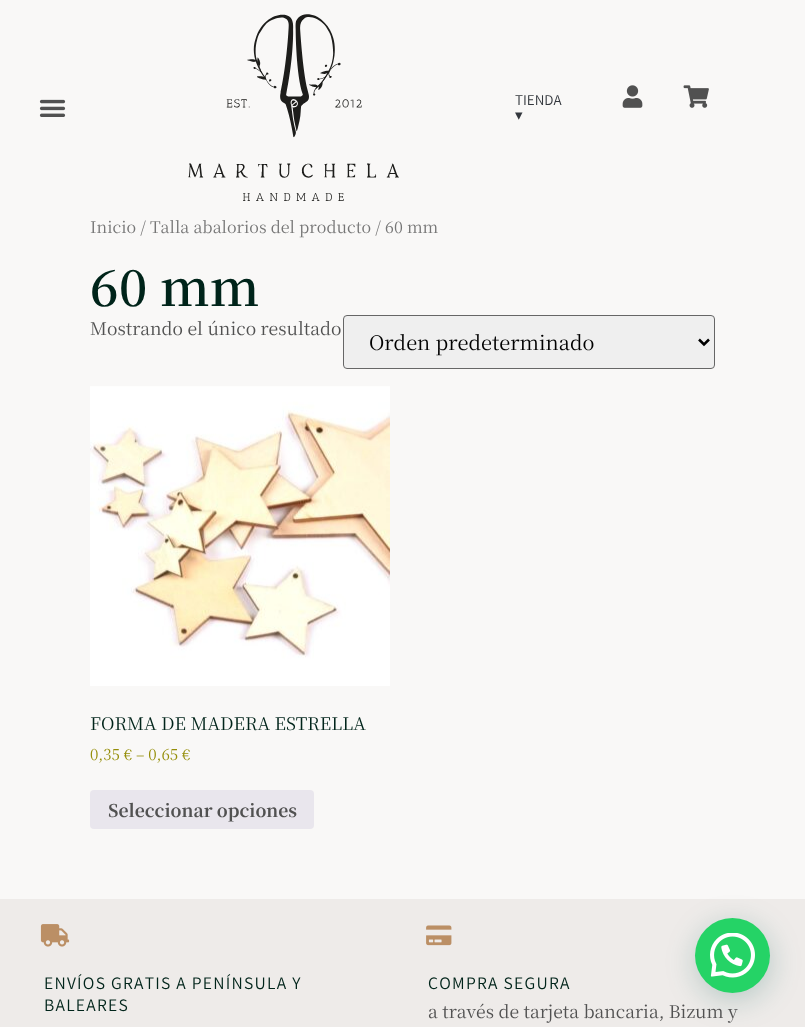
<!DOCTYPE html>
<meta charset="utf-8">
<style>body { margin: 0 } canvas { display: block }</style>
<canvas id="canvas" width="805" height="1027"></canvas>
<script type="module">
  const canvas = document.getElementById("canvas");
  const ctx = canvas.getContext("2d");
  ctx.miterLimit = 4;
  ctx.fontKerning = "none";
  async function loadImage(src) {
    const img = new Image();
    img.src = src;
    await img.decode();
    return img;
  }

  ctx.fillStyle = "#f9f8f7";
  ctx.fillRect(0, 0, 805, 1027);
  ctx.drawImage(await loadImage("img1.png"), 39, 99, 27, 18);
  ctx.drawImage(await loadImage("img2.png"), 188, 14, 211, 187);
  ctx.font = "15px Assistant";
  ctx.fillStyle = "#33373d";
  ctx.fillText("TIENDA", 515, 105);
  ctx.font = "15px DejaVu Sans";
  ctx.fillText("▾", 515, 120);
  ctx.drawImage(await loadImage("img3.png"), 622, 85, 21, 23);
  ctx.drawImage(await loadImage("img4.png"), 683, 85, 26, 23);
  ctx.font = "16.1px Noto Serif JP";
  ctx.fillStyle = "#767676";
  ctx.fillText("Inicio / Talla abalorios del producto / 60 mm", 90, 233);
  ctx.font = "600 50px Noto Serif JP";
  ctx.fillStyle = "#00241a";
  ctx.fillText("60 mm", 90, 306);
  ctx.font = "17.5px Noto Serif JP";
  ctx.fillStyle = "#515151";
  ctx.fillText("Mostrando el único resultado", 90, 335);
  ctx.fillStyle = "#efefef";
  ctx.beginPath();
  ctx.roundRect(343.5, 315.5, 371, 53, 3.5);
  ctx.fill();
  ctx.strokeStyle = "#666666";
  ctx.stroke();
  ctx.beginPath();
  ctx.moveTo(699, 339.5);
  ctx.lineTo(704, 344.5);
  ctx.lineTo(709, 339.5);
  ctx.strokeStyle = "#000000";
  ctx.lineWidth = 2.5;
  ctx.stroke();
  ctx.font = "20px Noto Serif JP";
  ctx.fillStyle = "#000000";
  ctx.fillText("Orden predeterminado", 369, 350);
  ctx.drawImage(await loadImage("img5.png"), 90, 386, 300, 300);
  ctx.font = "17.5px Noto Serif JP";
  ctx.fillStyle = "#00241a";
  ctx.fillText("FORMA DE MADERA ESTRELLA", 90, 730);
  ctx.font = "15px Noto Serif JP";
  ctx.fillStyle = "#958e09";
  ctx.fillText("0,35 € – 0,65 €", 90, 760);
  ctx.fillStyle = "#e9e6ed";
  ctx.beginPath();
  ctx.roundRect(90, 790, 224, 39, 4);
  ctx.fill();
  ctx.font = "bold 17.5px Noto Serif JP";
  ctx.fillStyle = "#515151";
  ctx.fillText("Seleccionar opciones", 108, 817);
  ctx.fillStyle = "#eeebe9";
  ctx.fillRect(0, 899, 805, 128);
  ctx.fillStyle = "rgba(7, 94, 84, 0.24)";
  ctx.filter = "blur(15px)";
  ctx.beginPath();
  ctx.roundRect(696, 925, 75, 75, 37.5);
  ctx.fill();
  ctx.filter = "none";
  ctx.fillStyle = "#25d366";
  ctx.beginPath();
  ctx.arc(732.5, 955.5, 37.5, 0, Math.PI * 2);
  ctx.fill();
  ctx.drawImage(await loadImage("img6.png"), 710, 933, 45, 45);
  ctx.drawImage(await loadImage("img7.png"), 40, 924, 30, 23);
  ctx.letterSpacing = "1.25px";
  ctx.font = "17.5px Assistant";
  ctx.fillStyle = "#00241a";
  ctx.fillText("ENVÍOS GRATIS A PENÍNSULA Y", 44, 989);
  ctx.fillText("BALEARES", 44, 1011);
  ctx.drawImage(await loadImage("img8.png"), 426, 925, 26, 21);
  ctx.fillText("COMPRA SEGURA", 428, 989);
  ctx.letterSpacing = "0px";
  ctx.font = "17.5px Noto Serif JP";
  ctx.fillStyle = "#515151";
  ctx.fillText("a través de tarjeta bancaria, Bizum y", 428, 1018);
</script>
